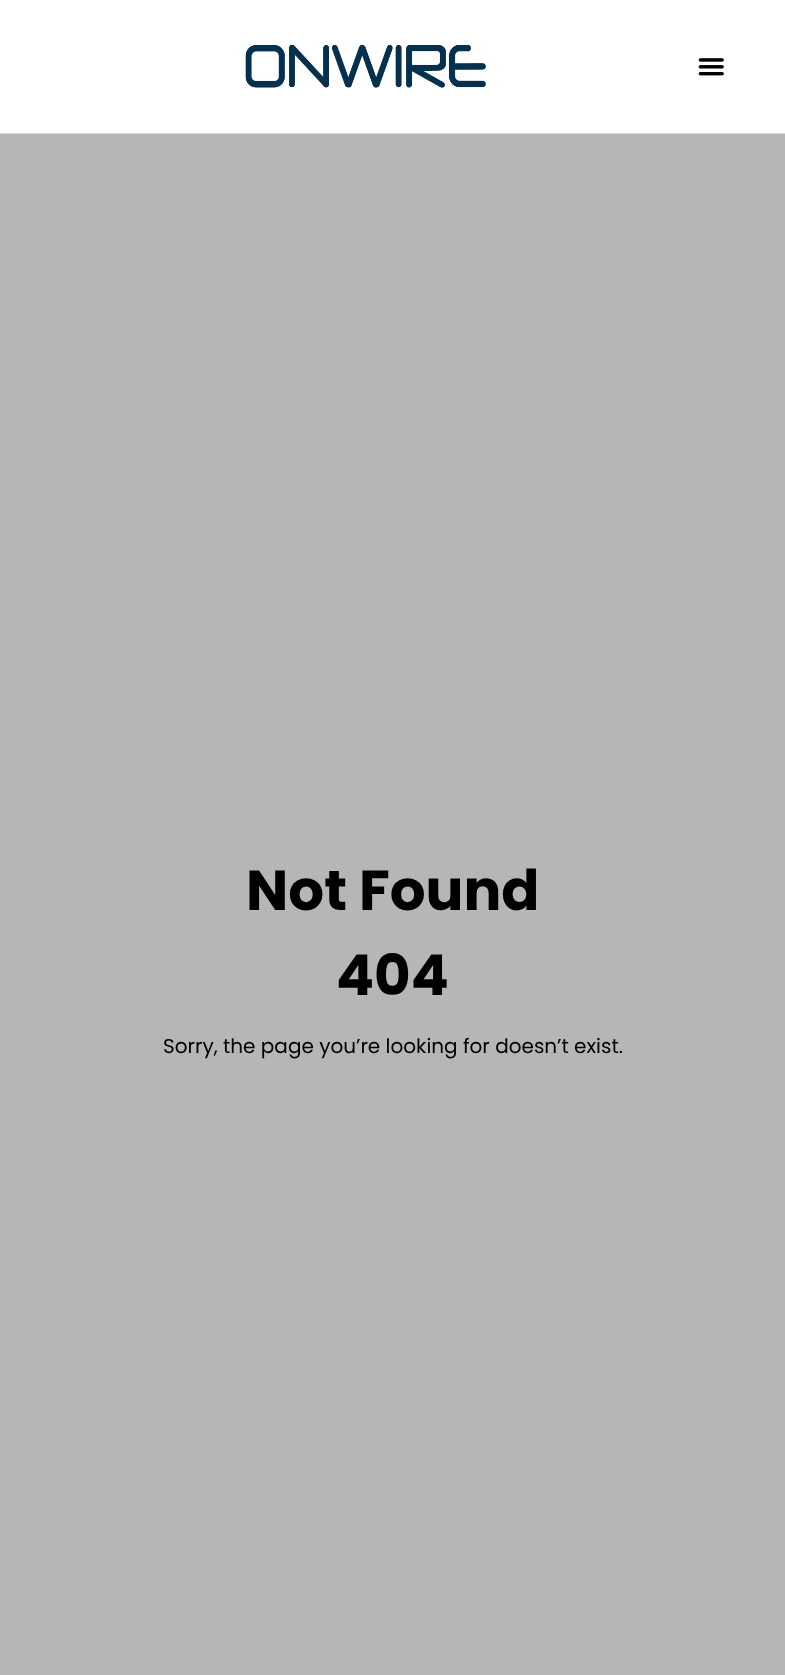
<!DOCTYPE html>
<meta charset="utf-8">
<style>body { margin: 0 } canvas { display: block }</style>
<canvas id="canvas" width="785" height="1675"></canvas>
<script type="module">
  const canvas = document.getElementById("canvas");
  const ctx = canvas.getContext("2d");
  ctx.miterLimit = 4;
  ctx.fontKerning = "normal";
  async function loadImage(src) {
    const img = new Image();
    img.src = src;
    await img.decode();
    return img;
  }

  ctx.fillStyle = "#ffffff";
  ctx.fillRect(0, 0, 785, 1675);
  ctx.fillStyle = "#d6d6d6";
  ctx.fillRect(0, 133, 785, 1);
  ctx.drawImage(await loadImage("img1.png"), 245, 45, 241, 43);
  ctx.drawImage(await loadImage("img2.png"), 698, 58, 26, 18);
  ctx.fillStyle = "#b6b6b6";
  ctx.fillRect(0, 134, 785, 1541);
  ctx.font = "bold 56.25px Poppins";
  ctx.fillStyle = "#000000";
  ctx.fillText("Not Found", 246, 910);
  ctx.fillText("404", 336, 995);
  ctx.font = "20px Poppins";
  ctx.fillText("Sorry, the page you’re looking for doesn’t exist.", 163, 1053);
</script>
